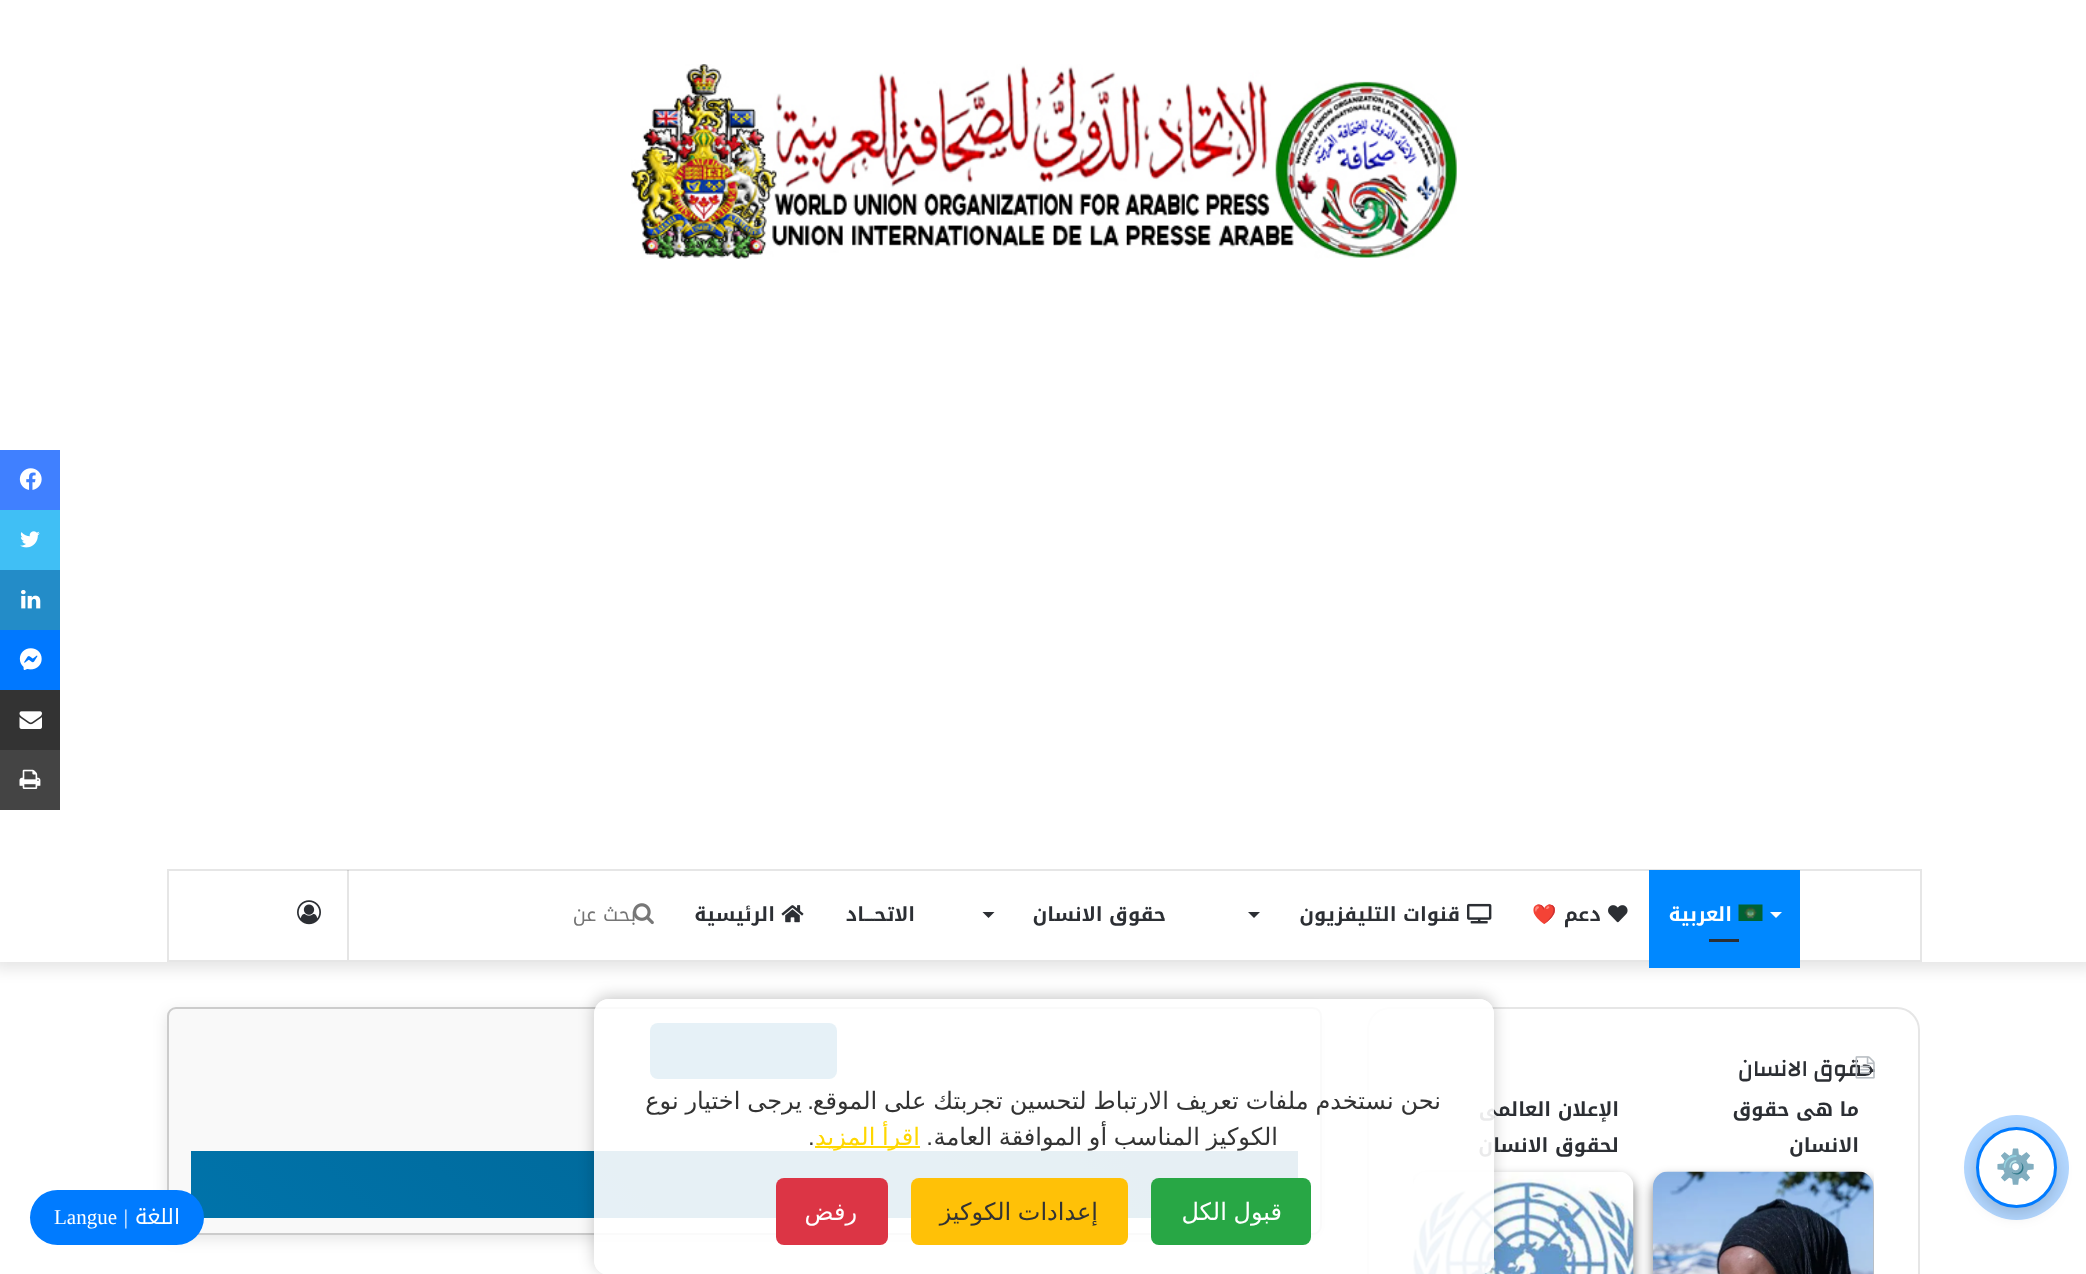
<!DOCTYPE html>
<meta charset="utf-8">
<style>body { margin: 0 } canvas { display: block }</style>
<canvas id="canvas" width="2086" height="1274"></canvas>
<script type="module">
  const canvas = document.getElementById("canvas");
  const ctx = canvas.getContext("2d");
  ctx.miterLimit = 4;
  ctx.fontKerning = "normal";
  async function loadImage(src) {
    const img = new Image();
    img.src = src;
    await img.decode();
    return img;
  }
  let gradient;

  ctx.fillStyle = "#ffffff";
  ctx.fillRect(0, 0, 2086, 1274);
  ctx.fillStyle = "rgba(0, 0, 0, 0.1)";
  ctx.filter = "blur(7.5px)";
  ctx.beginPath();
  ctx.rect(-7, -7, 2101, 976);
  ctx.fill();
  ctx.filter = "none";
  ctx.fillStyle = "#ffffff";
  ctx.fillRect(0, 0, 2086, 962);
  ctx.fillStyle = "#4080ff";
  ctx.fillRect(0, 450, 60, 60);
  ctx.drawImage(await loadImage("img1.png"), 19, 468, 23, 22);
  ctx.fillStyle = "#40bff5";
  ctx.fillRect(0, 510, 60, 60);
  ctx.drawImage(await loadImage("img2.png"), 20, 531, 20, 17);
  ctx.fillStyle = "#238cc8";
  ctx.fillRect(0, 570, 60, 60);
  ctx.drawImage(await loadImage("img3.png"), 21, 590, 20, 19);
  ctx.fillStyle = "#0078ff";
  ctx.fillRect(0, 630, 60, 60);
  ctx.drawImage(await loadImage("img4.png"), 19, 648, 23, 22);
  ctx.fillStyle = "#333333";
  ctx.fillRect(0, 690, 60, 60);
  ctx.drawImage(await loadImage("img5.png"), 19, 711, 23, 18);
  ctx.fillStyle = "#444444";
  ctx.fillRect(0, 750, 60, 60);
  ctx.drawImage(await loadImage("img6.png"), 19, 769, 22, 20);
  ctx.drawImage(await loadImage("img7.png"), 631, 64, 826, 195);
  ctx.strokeStyle = "#e6e6e6";
  ctx.lineWidth = 2;
  ctx.strokeRect(168, 870, 1753, 91);
  ctx.fillStyle = "#0088ff";
  ctx.fillRect(1649, 870, 151, 98);
  ctx.fillStyle = "#ffffff";
  ctx.beginPath();
  ctx.moveTo(1770, 912);
  ctx.lineTo(1782, 912);
  ctx.lineTo(1776, 918);
  ctx.closePath();
  ctx.fill();
  ctx.drawImage(await loadImage("img8.png"), 1738, 904, 25, 17);
  ctx.direction = "rtl";
  ctx.font = "bold 19.5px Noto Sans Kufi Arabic";
  ctx.fillText("العربية", 1732, 921);
  ctx.fillStyle = "#2c2f34";
  ctx.fillRect(1709, 939, 30, 3);
  ctx.drawImage(await loadImage("img9.png"), 1608, 905, 20, 18);
  ctx.fillText("دعم", 1601, 921);
  ctx.font = "bold 19.5px Noto Color Emoji";
  ctx.fillText("❤️", 1557, 921);
  ctx.drawImage(await loadImage("img10.png"), 1467, 903, 25, 21);
  ctx.font = "bold 19.5px Noto Sans Kufi Arabic";
  ctx.fillText("قنوات التليفزيون", 1460, 921);
  ctx.beginPath();
  ctx.moveTo(1248, 912);
  ctx.lineTo(1260, 912);
  ctx.lineTo(1254, 918);
  ctx.closePath();
  ctx.fill();
  ctx.fillText("حقوق الانسان", 1166, 921);
  ctx.beginPath();
  ctx.moveTo(982.5, 912);
  ctx.lineTo(994.5, 912);
  ctx.lineTo(988.5, 918);
  ctx.closePath();
  ctx.fill();
  ctx.fillText("الاتحـــاد", 915, 921);
  ctx.drawImage(await loadImage("img11.png"), 781, 905, 23, 18);
  ctx.fillText("الرئيسية", 775, 921);
  ctx.fillStyle = "rgba(0, 0, 0, 0.1)";
  ctx.fillRect(347, 870, 2, 90);
  ctx.font = "19.5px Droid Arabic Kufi";
  ctx.fillStyle = "#757575";
  ctx.fillText("بحث عن", 636, 921);
  ctx.drawImage(await loadImage("img12.png"), 633, 903, 21, 22);
  ctx.drawImage(await loadImage("img13.png"), 297, 900, 24, 25);
  ctx.beginPath();
  ctx.roundRect(1368, 1008, 551, 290, 22);
  ctx.stroke();
  ctx.font = "bold 22.5px Changa";
  ctx.fillStyle = "#2c2f34";
  ctx.fillText("حقوق الانسان", 1874, 1076);
  ctx.drawImage(await loadImage("img14.png"), 1855, 1056, 20, 23);
  ctx.font = "bold 19.5px Droid Arabic Kufi";
  ctx.fillText("ما هى حقوق", 1859, 1116);
  ctx.fillText("الانسان", 1859, 1152);
  ctx.save();
  ctx.beginPath();
  ctx.rect(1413, 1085, 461, 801);
  ctx.clip();
  ctx.fillStyle = "rgba(0, 0, 0, 0.5)";
  ctx.filter = "blur(6px)";
  ctx.beginPath();
  ctx.roundRect(1653, 1178, 221, 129, 15);
  ctx.fill();
  ctx.filter = "none";
  ctx.restore();
  ctx.drawImage(await loadImage("img15.png"), 1653, 1171, 221, 103);
  ctx.fillText("الإعلان العالمى", 1619, 1116);
  ctx.fillText("لحقوق الانسان", 1619, 1152);
  ctx.save();
  ctx.beginPath();
  ctx.rect(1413, 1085, 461, 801);
  ctx.clip();
  ctx.fillStyle = "rgba(0, 0, 0, 0.5)";
  ctx.filter = "blur(6px)";
  ctx.beginPath();
  ctx.roundRect(1413, 1178, 221, 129, 15);
  ctx.fill();
  ctx.filter = "none";
  ctx.restore();
  ctx.drawImage(await loadImage("img16.png"), 1413, 1172, 221, 102);
  ctx.fillStyle = "rgba(0, 0, 0, 0.1)";
  ctx.filter = "blur(7.5px)";
  ctx.beginPath();
  ctx.roundRect(167, 1011, 1155, 228, 9);
  ctx.fill();
  ctx.filter = "none";
  ctx.fillStyle = "#f9f9f9";
  ctx.beginPath();
  ctx.roundRect(168, 1008, 1153, 226, 8);
  ctx.fill();
  ctx.strokeStyle = "#cccccc";
  ctx.stroke();
  ctx.fillStyle = "#0073aa";
  ctx.beginPath();
  ctx.roundRect(650, 1023, 187, 56, 8);
  ctx.fill();
  gradient = ctx.createLinearGradient(450, 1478, 1038, 891);
  gradient.addColorStop(0, "#0073aa");
  gradient.addColorStop(1, "#005f8a");
  ctx.fillStyle = gradient;
  ctx.fillRect(191, 1151, 1107, 67);
  ctx.fillStyle = "#b3d7ff";
  ctx.beginPath();
  ctx.arc(2016.5, 1167.5, 52.5, 0, Math.PI * 2);
  ctx.fill();
  ctx.fillStyle = "rgba(0, 0, 0, 0.15)";
  ctx.filter = "blur(7.5px)";
  ctx.beginPath();
  ctx.roundRect(1976, 1133, 81, 81, 40.5);
  ctx.fill();
  ctx.filter = "none";
  ctx.fillStyle = "#ffffff";
  ctx.beginPath();
  ctx.arc(2016.5, 1167.5, 39, 0, Math.PI * 2);
  ctx.fill();
  ctx.strokeStyle = "#007bff";
  ctx.lineWidth = 3;
  ctx.stroke();
  ctx.direction = "ltr";
  ctx.font = "33px Noto Color Emoji";
  ctx.fillStyle = "#007bff";
  ctx.fillText("⚙️", 1995, 1178);
  ctx.save();
  ctx.beginPath();
  ctx.moveTo(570, 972);
  ctx.lineTo(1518, 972);
  ctx.lineTo(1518, 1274);
  ctx.lineTo(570, 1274);
  ctx.closePath();
  ctx.moveTo(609, 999);
  ctx.lineTo(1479, 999);
  ctx.bezierCurveTo(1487.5, 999, 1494, 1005.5, 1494, 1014);
  ctx.lineTo(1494, 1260);
  ctx.bezierCurveTo(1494, 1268.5, 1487.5, 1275, 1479, 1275);
  ctx.lineTo(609, 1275);
  ctx.bezierCurveTo(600.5, 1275, 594, 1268.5, 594, 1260);
  ctx.lineTo(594, 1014);
  ctx.bezierCurveTo(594, 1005.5, 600.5, 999, 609, 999);
  ctx.closePath();
  ctx.clip("evenodd");
  ctx.fillStyle = "rgba(0, 0, 0, 0.2)";
  ctx.filter = "blur(7.5px)";
  ctx.beginPath();
  ctx.roundRect(594, 996, 900, 276, 15);
  ctx.fill();
  ctx.filter = "none";
  ctx.restore();
  ctx.fillStyle = "rgba(255, 255, 255, 0.9)";
  ctx.beginPath();
  ctx.roundRect(594, 999, 900, 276, 15);
  ctx.fill();
  ctx.wordSpacing = "-0.75px";
  ctx.direction = "rtl";
  ctx.font = "24px DejaVu Sans";
  ctx.fillStyle = "#333333";
  ctx.fillText("نحن نستخدم ملفات تعريف الارتباط لتحسين تجربتك على الموقع", 1441, 1109);
  ctx.wordSpacing = "0px";
  ctx.font = "24px Liberation Sans";
  ctx.fillText(".", 814, 1109);
  ctx.wordSpacing = "-0.75px";
  ctx.font = "24px DejaVu Sans";
  ctx.fillText("يرجى اختيار نوع", 802, 1109);
  ctx.wordSpacing = "-1px";
  ctx.fillText("الكوكيز المناسب أو الموافقة العامة", 1278, 1145);
  ctx.wordSpacing = "0px";
  ctx.font = "24px Liberation Sans";
  ctx.fillText(".", 933, 1145);
  ctx.fillStyle = "#ffd700";
  ctx.fillRect(815, 1146, 105, 2);
  ctx.wordSpacing = "-1px";
  ctx.font = "24px DejaVu Sans";
  ctx.fillText("اقرأ المزيد", 920, 1145);
  ctx.wordSpacing = "0px";
  ctx.direction = "ltr";
  ctx.font = "24px Liberation Sans";
  ctx.fillStyle = "#333333";
  ctx.fillText(".", 808, 1145);
  ctx.fillStyle = "#28a745";
  ctx.beginPath();
  ctx.roundRect(1151, 1178, 160, 67, 8);
  ctx.fill();
  ctx.wordSpacing = "-1px";
  ctx.direction = "rtl";
  ctx.font = "24px DejaVu Sans";
  ctx.fillStyle = "#ffffff";
  ctx.fillText("قبول الكل", 1282, 1220);
  ctx.fillStyle = "#ffc107";
  ctx.beginPath();
  ctx.roundRect(911, 1178, 217, 67, 8);
  ctx.fill();
  ctx.fillStyle = "#333333";
  ctx.fillText("إعدادات الكوكيز", 1098, 1220);
  ctx.fillStyle = "#dc3545";
  ctx.beginPath();
  ctx.roundRect(776, 1178, 112, 67, 8);
  ctx.fill();
  ctx.wordSpacing = "0px";
  ctx.fillStyle = "#ffffff";
  ctx.fillText("رفض", 857, 1220);
  ctx.fillStyle = "#007bff";
  ctx.beginPath();
  ctx.roundRect(30, 1190, 174, 55, 27.5);
  ctx.fill();
  ctx.font = "21px Droid Arabic Kufi";
  ctx.fillStyle = "#ffffff";
  ctx.fillText("اللغة", 180, 1224);
  ctx.font = "21px Liberation Serif";
  ctx.fillText("|", 128, 1224);
  ctx.direction = "ltr";
  ctx.fillText("Langue", 54, 1224);
</script>
